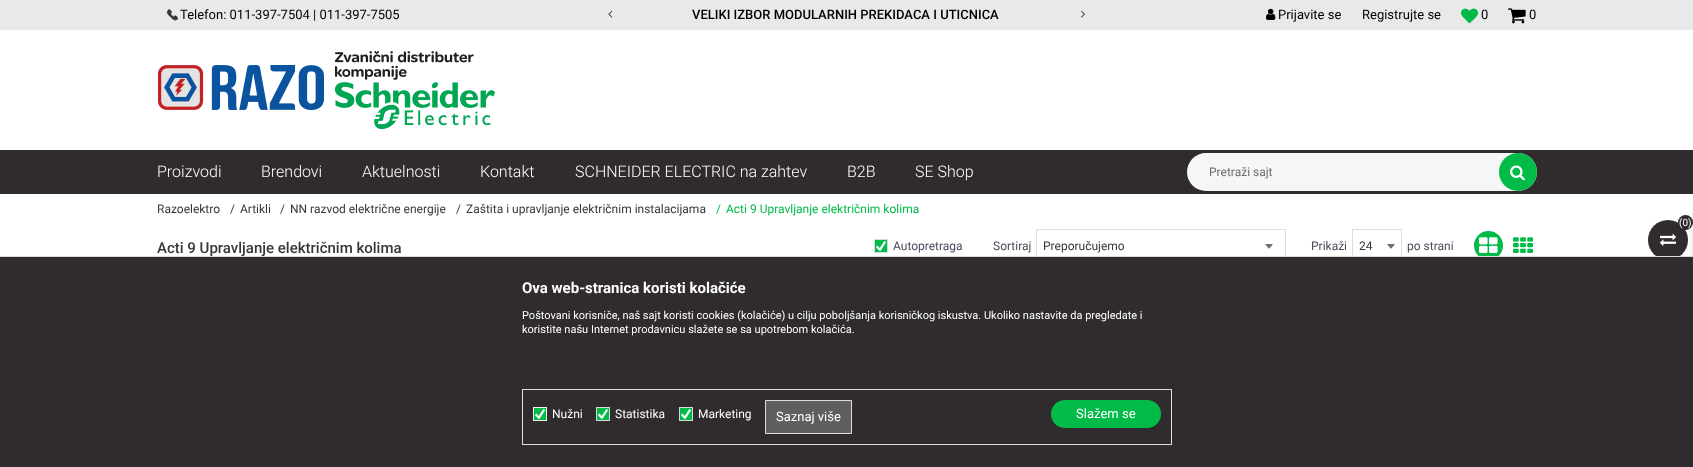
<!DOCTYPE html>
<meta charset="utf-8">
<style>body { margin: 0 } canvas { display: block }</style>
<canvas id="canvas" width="1693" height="467"></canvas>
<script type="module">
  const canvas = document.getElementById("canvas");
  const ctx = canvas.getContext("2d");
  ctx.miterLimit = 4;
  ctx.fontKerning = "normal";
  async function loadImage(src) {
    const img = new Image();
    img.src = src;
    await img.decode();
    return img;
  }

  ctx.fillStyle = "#ffffff";
  ctx.fillRect(0, 0, 1693, 467);
  ctx.fillStyle = "#e9e9e9";
  ctx.fillRect(0, 0, 1693, 30);
  ctx.drawImage(await loadImage("img1.png"), 167, 9, 11, 12);
  ctx.font = "13px Roboto";
  ctx.fillStyle = "#000000";
  ctx.fillText("Telefon: 011-397-7504 | 011-397-7505", 180, 19);
  ctx.font = "500 13px Roboto";
  ctx.fillText("VELIKI IZBOR MODULARNIH PREKIDACA I UTICNICA", 692, 19);
  ctx.drawImage(await loadImage("img2.png"), 608, 10, 5, 8);
  ctx.drawImage(await loadImage("img3.png"), 1081, 10, 4, 8);
  ctx.drawImage(await loadImage("img4.png"), 1266, 8, 10, 12);
  ctx.font = "13px Roboto";
  ctx.fillText("Prijavite se", 1278, 19);
  ctx.fillText("Registrujte se", 1362, 19);
  ctx.drawImage(await loadImage("img5.png"), 1461, 8, 17, 16);
  ctx.fillText("0", 1481, 19);
  ctx.drawImage(await loadImage("img6.png"), 1508, 8, 18, 16);
  ctx.fillText("0", 1529, 19);
  ctx.drawImage(await loadImage("img7.png"), 158, 51, 337, 78);
  ctx.fillStyle = "#302c2d";
  ctx.fillRect(0, 150, 1693, 44);
  ctx.font = "300 16px Roboto";
  ctx.fillStyle = "#ffffff";
  ctx.fillText("Proizvodi", 157, 177);
  ctx.fillText("Brendovi", 261, 177);
  ctx.fillText("Aktuelnosti", 362, 177);
  ctx.fillText("Kontakt", 480, 177);
  ctx.fillText("SCHNEIDER ELECTRIC na zahtev", 575, 177);
  ctx.fillText("B2B", 847, 177);
  ctx.fillText("SE Shop", 915, 177);
  ctx.fillStyle = "#f6f6f6";
  ctx.beginPath();
  ctx.roundRect(1187, 153, 350, 38, 19);
  ctx.fill();
  ctx.font = "12px Roboto";
  ctx.fillStyle = "#6b6b6b";
  ctx.fillText("Pretraži sajt", 1209, 176);
  ctx.fillStyle = "#00bb47";
  ctx.beginPath();
  ctx.arc(1518, 172, 19, 0, Math.PI * 2);
  ctx.fill();
  ctx.drawImage(await loadImage("img8.png"), 1510, 165, 15, 16);
  ctx.fillStyle = "#373737";
  ctx.fillText("Razoelektro", 157, 213);
  ctx.fillText("/", 230, 213);
  ctx.fillText("Artikli", 240, 213);
  ctx.fillText("/", 280, 213);
  ctx.fillText("NN razvod električne energije", 290, 213);
  ctx.fillText("/", 456, 213);
  ctx.fillText("Zaštita i upravljanje električnim instalacijama", 466, 213);
  ctx.fillStyle = "#00bb47";
  ctx.fillText("/", 716, 213);
  ctx.fillText("Acti 9 Upravljanje električnim kolima", 726, 213);
  ctx.fillStyle = "#302c2d";
  ctx.beginPath();
  ctx.arc(1668, 240, 20, 0, Math.PI * 2);
  ctx.fill();
  ctx.beginPath();
  ctx.arc(1685.5, 222.5, 7.5, 0, Math.PI * 2);
  ctx.fill();
  ctx.fillStyle = "rgba(0, 0, 0, 0.5)";
  ctx.filter = "blur(5px)";
  ctx.beginPath();
  ctx.rect(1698, 215, 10, 106);
  ctx.fill();
  ctx.filter = "none";
  ctx.font = "10px Roboto";
  ctx.fillStyle = "#ffffff";
  ctx.fillText("(0)", 1679, 226);
  ctx.drawImage(await loadImage("img9.png"), 1660, 233, 16, 13);
  ctx.font = "500 15px Roboto";
  ctx.fillStyle = "#373737";
  ctx.fillText("Acti 9 Upravljanje električnim kolima", 157, 253);
  ctx.fillStyle = "#00bb47";
  ctx.fillRect(875, 240, 12, 12);
  ctx.drawImage(await loadImage("img10.png"), 876, 241, 10, 10);
  ctx.strokeStyle = "#d9d9d9";
  ctx.strokeRect(874.5, 239.5, 13, 13);
  ctx.font = "12px Roboto";
  ctx.fillStyle = "#4a4b5c";
  ctx.fillText("Autopretraga", 893, 250);
  ctx.fillText("Sortiraj", 993, 250);
  ctx.drawImage(await loadImage("img11.png"), 1265, 244, 8, 5);
  ctx.strokeStyle = "#dddddd";
  ctx.strokeRect(1036.5, 229.5, 249, 33);
  ctx.fillStyle = "#373737";
  ctx.fillText("Preporučujemo", 1043, 250);
  ctx.fillStyle = "#4a4b5c";
  ctx.fillText("Prikaži", 1311, 250);
  ctx.drawImage(await loadImage("img11.png"), 1387, 244, 8, 5);
  ctx.strokeRect(1352.5, 229.5, 49, 33);
  ctx.fillStyle = "#373737";
  ctx.fillText("24", 1359, 250);
  ctx.fillStyle = "#4a4b5c";
  ctx.fillText("po strani", 1407, 250);
  ctx.fillStyle = "#00bb47";
  ctx.beginPath();
  ctx.arc(1488.5, 245.5, 14.5, 0, Math.PI * 2);
  ctx.fill();
  ctx.drawImage(await loadImage("img12.png"), 1479, 237, 19, 16);
  ctx.drawImage(await loadImage("img13.png"), 1513, 237, 20, 16);
  ctx.strokeStyle = "#d9d9d9";
  ctx.strokeRect(-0.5, 256.5, 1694, 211);
  ctx.fillStyle = "#302c2d";
  ctx.fillRect(0, 257, 1693, 210);
  ctx.font = "bold 15px Roboto";
  ctx.fillStyle = "#ffffff";
  ctx.fillText("Ova web-stranica koristi kolačiće", 522, 293);
  ctx.font = "11px Roboto";
  ctx.fillText("Poštovani korisniče, naš sajt koristi cookies (kolačiće) u cilju poboljšanja korisničkog iskustva. Ukoliko nastavite da pregledate i", 522, 319);
  ctx.fillText("koristite našu Internet prodavnicu slažete se sa upotrebom kolačića.", 522, 333);
  ctx.strokeStyle = "#dedede";
  ctx.strokeRect(522.5, 389.5, 649, 55);
  ctx.fillStyle = "#00bb47";
  ctx.fillRect(534, 408, 12, 12);
  ctx.drawImage(await loadImage("img10.png"), 535, 409, 10, 10);
  ctx.strokeStyle = "#f0f0f0";
  ctx.strokeRect(533.5, 407.5, 13, 13);
  ctx.font = "12px Roboto";
  ctx.fillStyle = "#ffffff";
  ctx.fillText("Nužni", 552, 418);
  ctx.fillStyle = "#00bb47";
  ctx.fillRect(597, 408, 12, 12);
  ctx.drawImage(await loadImage("img10.png"), 598, 409, 10, 10);
  ctx.strokeStyle = "#d9d9d9";
  ctx.strokeRect(596.5, 407.5, 13, 13);
  ctx.fillStyle = "#ffffff";
  ctx.fillText("Statistika", 615, 418);
  ctx.fillStyle = "#00bb47";
  ctx.fillRect(680, 408, 12, 12);
  ctx.drawImage(await loadImage("img10.png"), 681, 409, 10, 10);
  ctx.strokeRect(679.5, 407.5, 13, 13);
  ctx.fillStyle = "#ffffff";
  ctx.fillText("Marketing", 698, 418);
  ctx.fillStyle = "#615e5f";
  ctx.beginPath();
  ctx.rect(765.5, 400.5, 86, 33);
  ctx.fill();
  ctx.strokeStyle = "#dedede";
  ctx.stroke();
  ctx.font = "13px Roboto";
  ctx.fillStyle = "#ffffff";
  ctx.fillText("Saznaj više", 776, 421);
  ctx.fillStyle = "#00bb47";
  ctx.beginPath();
  ctx.roundRect(1051, 400, 110, 28, 14);
  ctx.fill();
  ctx.fillStyle = "#ffffff";
  ctx.fillText("Slažem se", 1076, 418);
</script>
